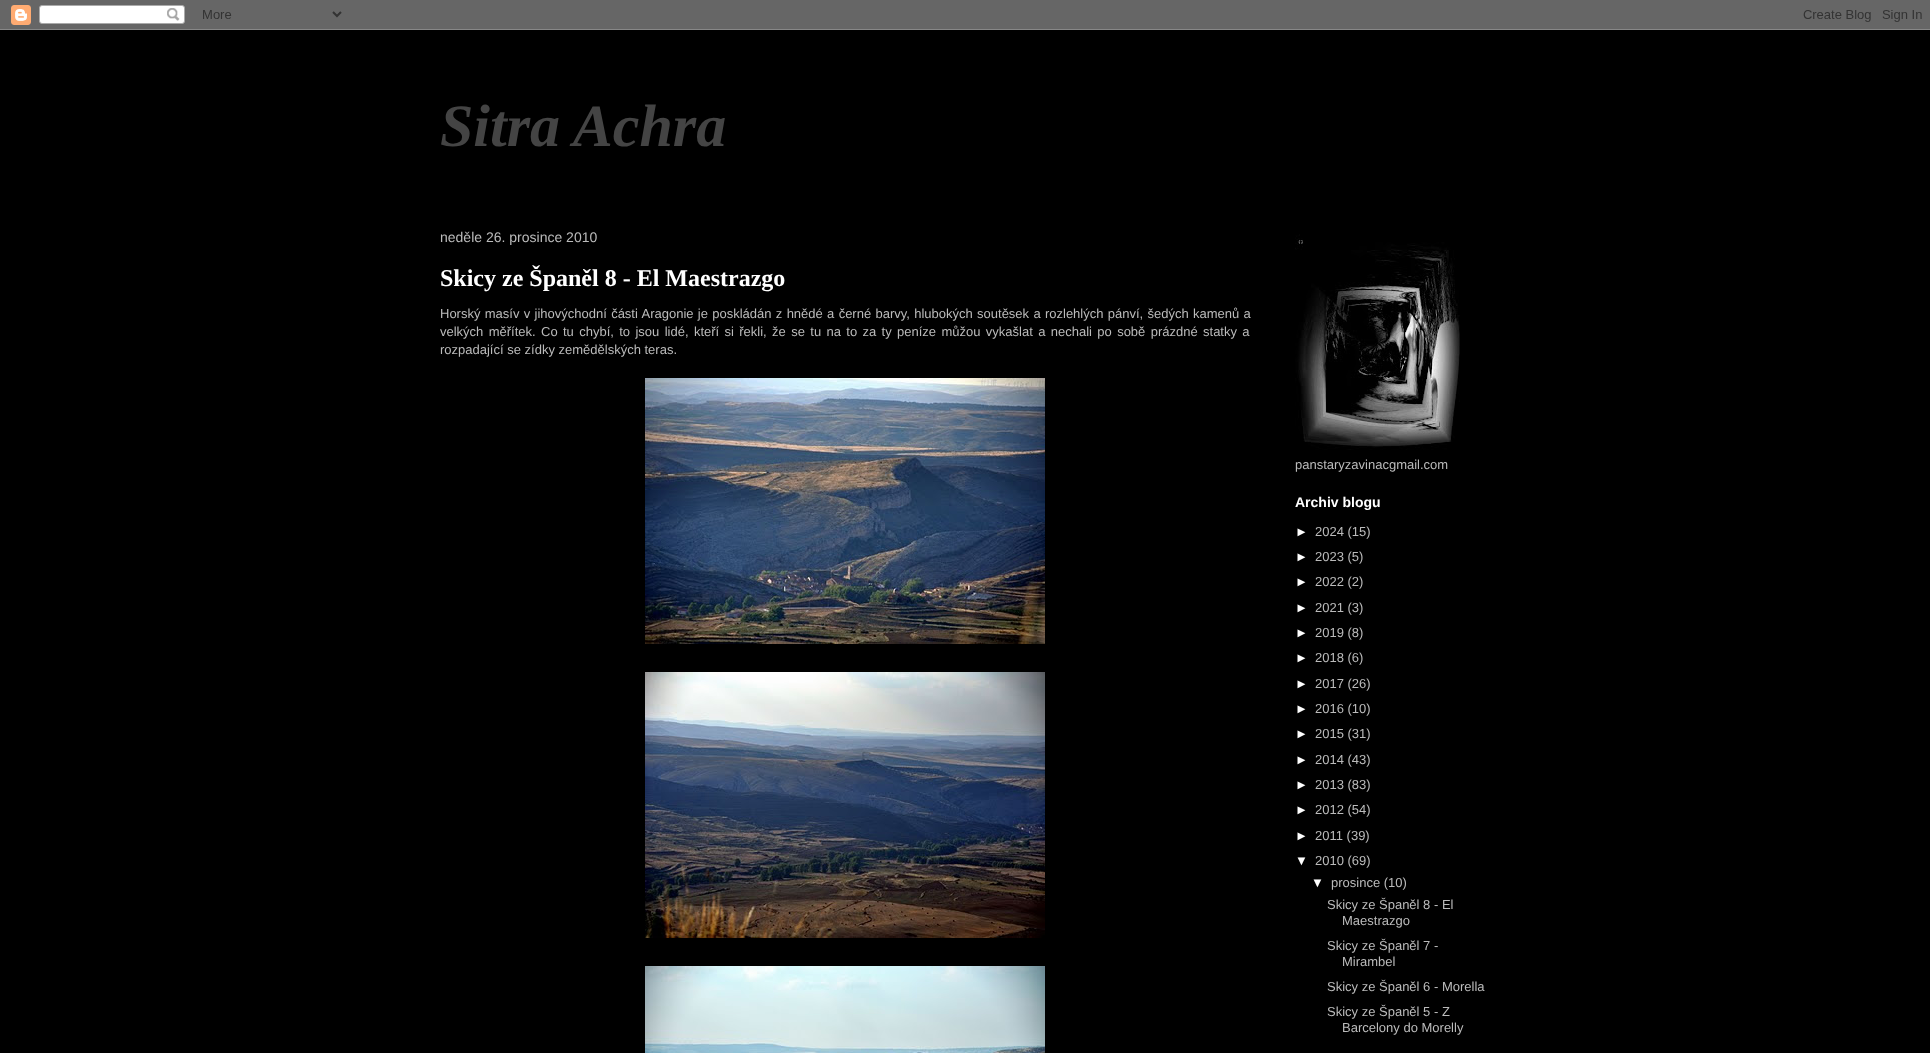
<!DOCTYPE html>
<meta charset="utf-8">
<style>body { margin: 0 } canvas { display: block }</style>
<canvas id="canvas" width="1930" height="1053"></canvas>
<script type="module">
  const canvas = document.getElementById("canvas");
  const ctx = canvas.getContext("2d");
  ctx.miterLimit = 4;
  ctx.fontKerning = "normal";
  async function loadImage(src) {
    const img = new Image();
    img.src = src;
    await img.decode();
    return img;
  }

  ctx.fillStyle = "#000000";
  ctx.fillRect(0, 0, 1930, 1053);
  ctx.drawImage(await loadImage("img1.png"), 0, 0, 1930, 30);
  ctx.font = "italic bold 60px Liberation Serif";
  ctx.fillStyle = "#444444";
  ctx.fillText("Sitra Achra", 440, 146);
  ctx.font = "14px Liberation Sans";
  ctx.fillStyle = "#bbbbbb";
  ctx.fillText("neděle 26. prosince 2010", 440, 242);
  ctx.font = "bold 24px Liberation Serif";
  ctx.fillStyle = "#ffffff";
  ctx.fillText("Skicy ze Španěl 8 - El Maestrazgo", 440, 286);
  ctx.wordSpacing = "0.7px";
  ctx.font = "13px Liberation Sans";
  ctx.fillStyle = "#bbbbbb";
  ctx.fillText("Horský masív v jihovýchodní části Aragonie je poskládán z hnědé a černé barvy, hlubokých soutěsek a rozlehlých pánví, šedých kamenů a", 440, 318);
  ctx.wordSpacing = "1.75px";
  ctx.fillText("velkých měřítek. Co tu chybí, to jsou lidé, kteří si řekli, že se tu na to za ty peníze můžou vykašlat a nechali po sobě prázdné statky a", 440, 336);
  ctx.wordSpacing = "0px";
  ctx.fillText("rozpadající se zídky zemědělských teras.", 440, 354);
  ctx.drawImage(await loadImage("img2.png"), 645, 378, 400, 266);
  ctx.drawImage(await loadImage("img3.png"), 645, 672, 400, 266);
  ctx.drawImage(await loadImage("img4.png"), 645, 966, 400, 87);
  ctx.drawImage(await loadImage("img5.png"), 1295, 234, 165, 216);
  ctx.fillText("panstaryzavinacgmail.com", 1295, 469);
  ctx.font = "bold 14px Liberation Sans";
  ctx.fillStyle = "#ffffff";
  ctx.fillText("Archiv blogu", 1295, 507);
  ctx.font = "13px Liberation Sans";
  ctx.fillText("►", 1295, 536);
  ctx.fillStyle = "#bbbbbb";
  ctx.fillText("2024 (15)", 1315, 536);
  ctx.fillStyle = "#ffffff";
  ctx.fillText("►", 1295, 561);
  ctx.fillStyle = "#bbbbbb";
  ctx.fillText("2023 (5)", 1315, 561);
  ctx.fillStyle = "#ffffff";
  ctx.fillText("►", 1295, 586);
  ctx.fillStyle = "#bbbbbb";
  ctx.fillText("2022 (2)", 1315, 586);
  ctx.fillStyle = "#ffffff";
  ctx.fillText("►", 1295, 612);
  ctx.fillStyle = "#bbbbbb";
  ctx.fillText("2021 (3)", 1315, 612);
  ctx.fillStyle = "#ffffff";
  ctx.fillText("►", 1295, 637);
  ctx.fillStyle = "#bbbbbb";
  ctx.fillText("2019 (8)", 1315, 637);
  ctx.fillStyle = "#ffffff";
  ctx.fillText("►", 1295, 662);
  ctx.fillStyle = "#bbbbbb";
  ctx.fillText("2018 (6)", 1315, 662);
  ctx.fillStyle = "#ffffff";
  ctx.fillText("►", 1295, 688);
  ctx.fillStyle = "#bbbbbb";
  ctx.fillText("2017 (26)", 1315, 688);
  ctx.fillStyle = "#ffffff";
  ctx.fillText("►", 1295, 713);
  ctx.fillStyle = "#bbbbbb";
  ctx.fillText("2016 (10)", 1315, 713);
  ctx.fillStyle = "#ffffff";
  ctx.fillText("►", 1295, 738);
  ctx.fillStyle = "#bbbbbb";
  ctx.fillText("2015 (31)", 1315, 738);
  ctx.fillStyle = "#ffffff";
  ctx.fillText("►", 1295, 764);
  ctx.fillStyle = "#bbbbbb";
  ctx.fillText("2014 (43)", 1315, 764);
  ctx.fillStyle = "#ffffff";
  ctx.fillText("►", 1295, 789);
  ctx.fillStyle = "#bbbbbb";
  ctx.fillText("2013 (83)", 1315, 789);
  ctx.fillStyle = "#ffffff";
  ctx.fillText("►", 1295, 814);
  ctx.fillStyle = "#bbbbbb";
  ctx.fillText("2012 (54)", 1315, 814);
  ctx.fillStyle = "#ffffff";
  ctx.fillText("►", 1295, 840);
  ctx.fillStyle = "#bbbbbb";
  ctx.fillText("2011 (39)", 1315, 840);
  ctx.fillStyle = "#ffffff";
  ctx.fillText("▼", 1295, 865);
  ctx.fillStyle = "#bbbbbb";
  ctx.fillText("2010 (69)", 1315, 865);
  ctx.fillStyle = "#ffffff";
  ctx.fillText("▼", 1311, 887);
  ctx.fillStyle = "#bbbbbb";
  ctx.fillText("prosince (10)", 1331, 887);
  ctx.fillText("Skicy ze Španěl 8 - El", 1327, 909);
  ctx.fillText("Maestrazgo", 1342, 925);
  ctx.fillText("Skicy ze Španěl 7 -", 1327, 950);
  ctx.fillText("Mirambel", 1342, 966);
  ctx.fillText("Skicy ze Španěl 6 - Morella", 1327, 991);
  ctx.fillText("Skicy ze Španěl 5 - Z", 1327, 1016);
  ctx.fillText("Barcelony do Morelly", 1342, 1032);
</script>
